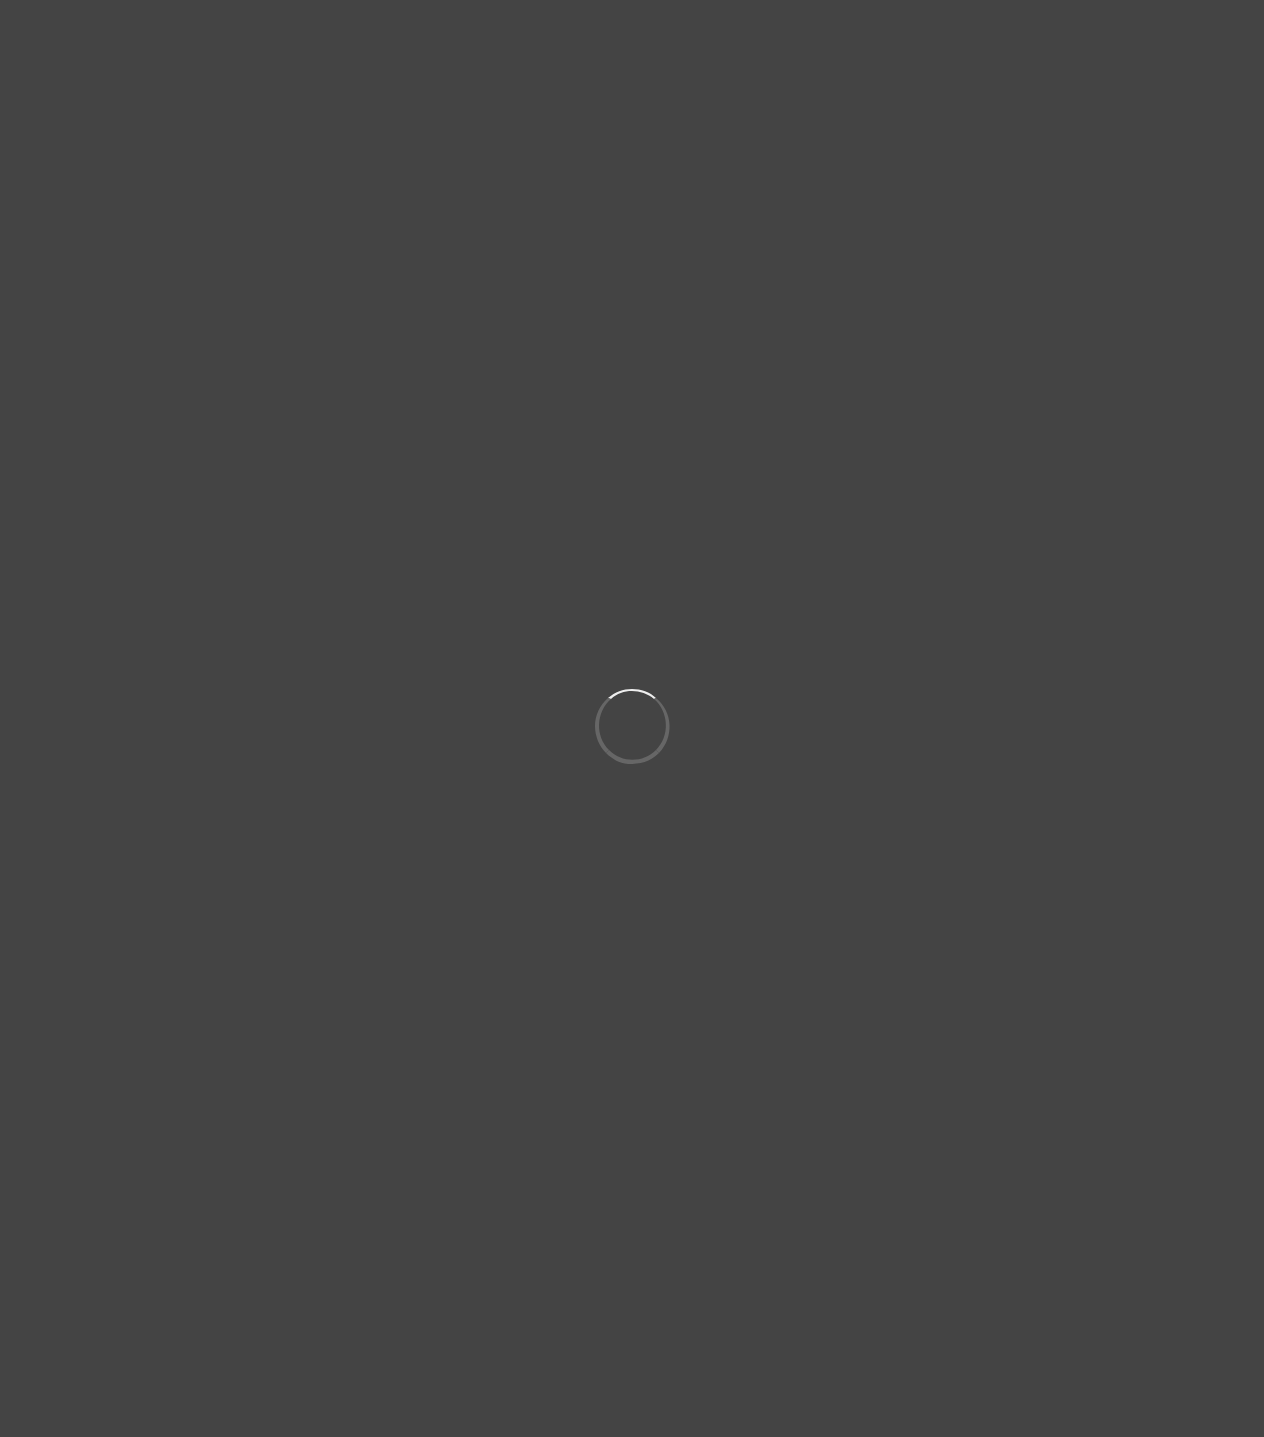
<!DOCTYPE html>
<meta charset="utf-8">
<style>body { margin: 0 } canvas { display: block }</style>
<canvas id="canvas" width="1264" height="1437"></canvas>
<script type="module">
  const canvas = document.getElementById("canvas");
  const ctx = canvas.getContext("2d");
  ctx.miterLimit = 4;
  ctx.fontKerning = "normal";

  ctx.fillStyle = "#444444";
  ctx.fillRect(0, 0, 1264, 1437);
  ctx.fillStyle = "#eeeeee";
  ctx.beginPath();
  ctx.moveTo(632, 689);
  ctx.bezierCurveTo(623, 689, 615, 692, 608, 698);
  ctx.lineTo(611, 699);
  ctx.bezierCurveTo(623, 688, 642, 689, 654, 699);
  ctx.lineTo(656, 698);
  ctx.bezierCurveTo(650, 692, 641, 689, 632, 689);
  ctx.closePath();
  ctx.fill();
  ctx.fillStyle = "#666666";
  ctx.beginPath();
  ctx.moveTo(656, 698);
  ctx.bezierCurveTo(673, 712, 674, 737, 659, 753);
  ctx.lineTo(656, 750);
  ctx.bezierCurveTo(670, 736, 669, 712, 654, 699);
  ctx.closePath();
  ctx.fill();
  ctx.beginPath();
  ctx.moveTo(628, 764);
  ctx.bezierCurveTo(619, 763, 612, 759, 606, 753);
  ctx.lineTo(609, 750);
  ctx.bezierCurveTo(622, 763, 643, 763, 656, 750);
  ctx.lineTo(659, 753);
  ctx.bezierCurveTo(650, 762, 640, 764, 628, 764);
  ctx.closePath();
  ctx.fill();
  ctx.beginPath();
  ctx.moveTo(595, 726);
  ctx.bezierCurveTo(595, 736, 599, 746, 606, 753);
  ctx.lineTo(609, 750);
  ctx.bezierCurveTo(595, 736, 596, 712, 611, 699);
  ctx.lineTo(608, 698);
  ctx.bezierCurveTo(600, 705, 595, 715, 595, 726);
  ctx.closePath();
  ctx.fill();
</script>
